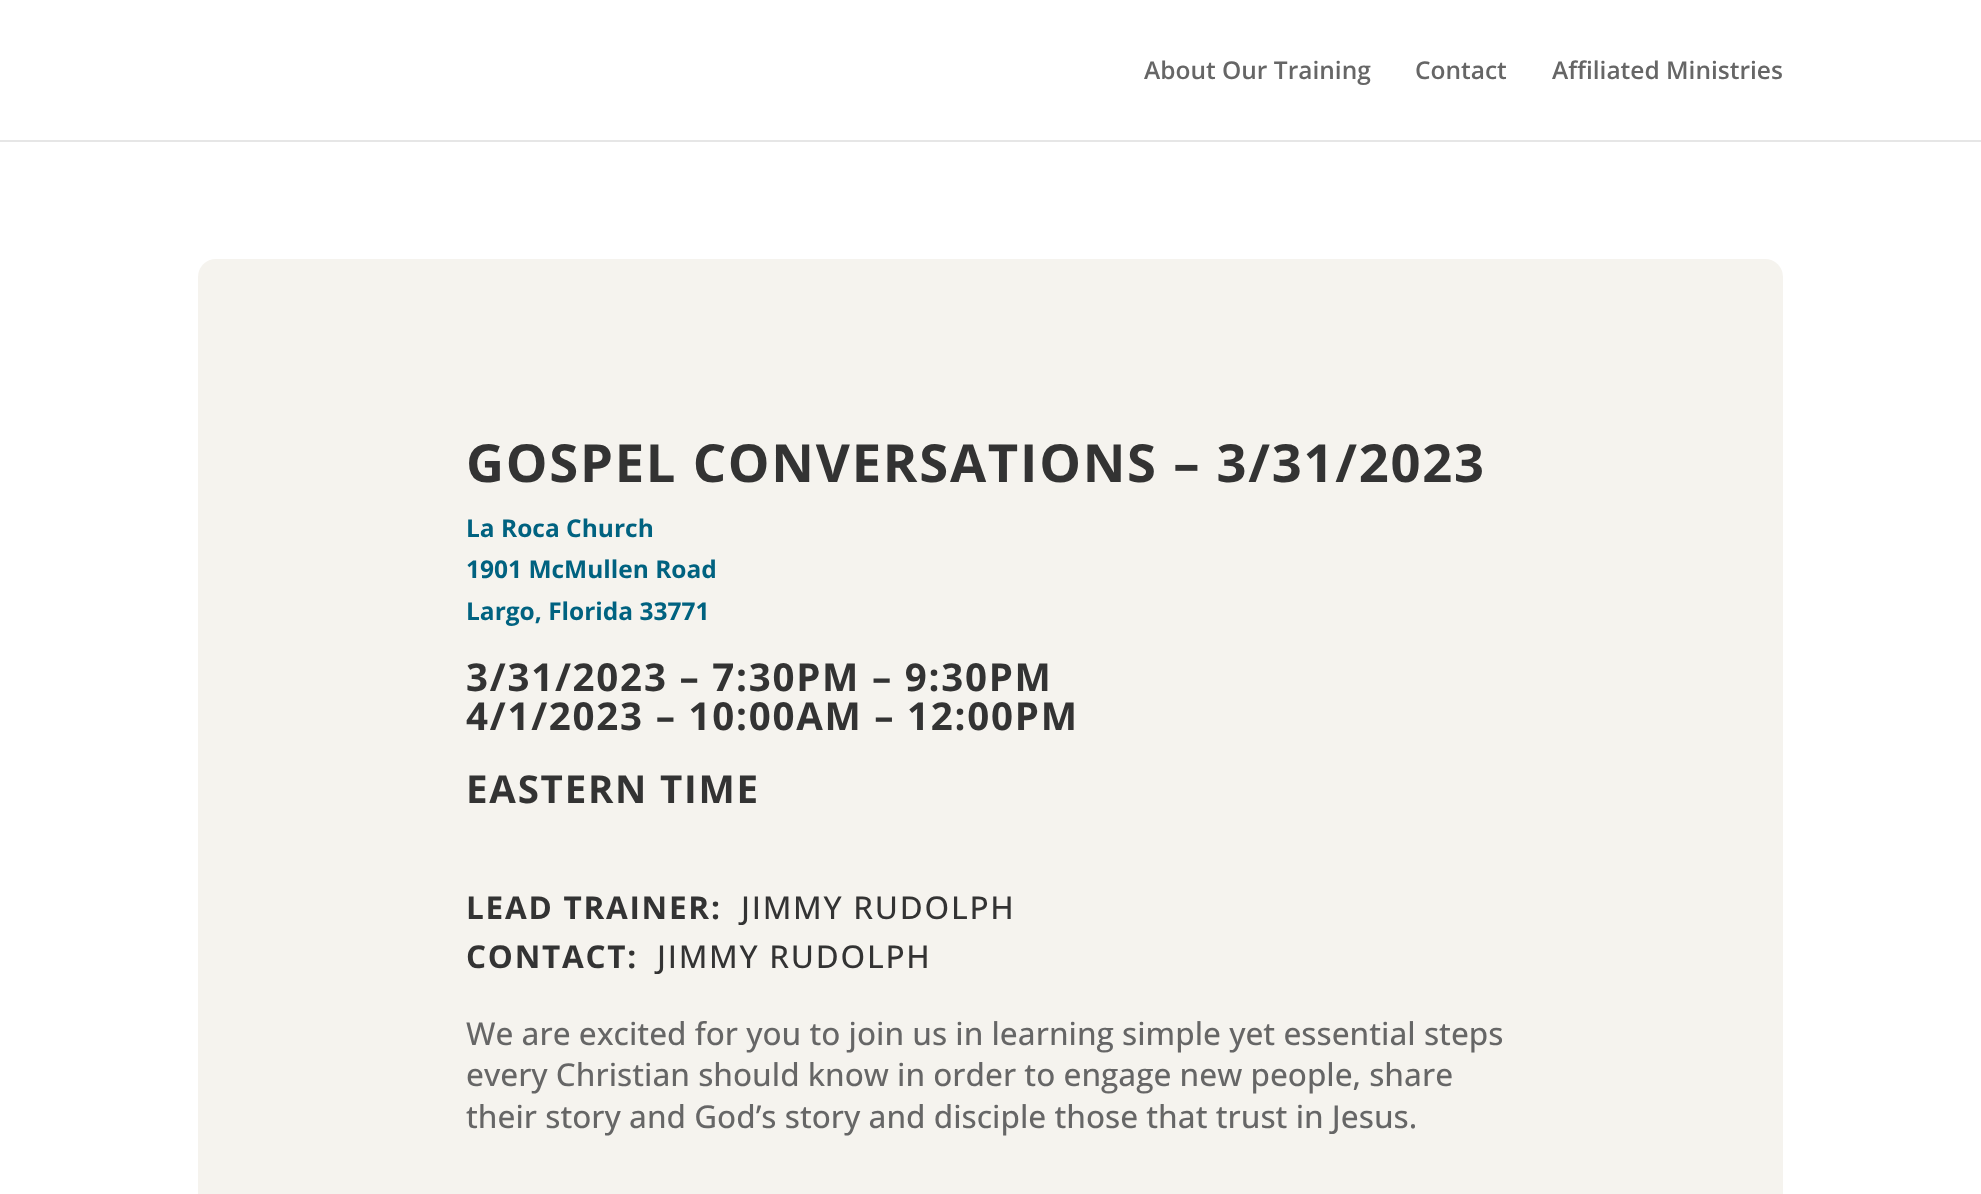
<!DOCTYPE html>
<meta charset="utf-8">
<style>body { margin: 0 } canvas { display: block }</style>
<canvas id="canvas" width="1981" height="1194"></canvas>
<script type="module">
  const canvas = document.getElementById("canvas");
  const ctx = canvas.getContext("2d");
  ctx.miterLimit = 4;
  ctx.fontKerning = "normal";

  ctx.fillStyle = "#ffffff";
  ctx.fillRect(0, 0, 1981, 1194);
  ctx.fillStyle = "#e6e6e6";
  ctx.fillRect(0, 140, 1981, 2);
  ctx.font = "600 24.5px Open Sans";
  ctx.fillStyle = "#666666";
  ctx.fillText("About Our Training", 1144, 79);
  ctx.fillText("Contact", 1415, 79);
  ctx.fillText("Affiliated Ministries", 1552, 79);
  ctx.fillStyle = "#f5f3ee";
  ctx.beginPath();
  ctx.roundRect(198, 259, 1585, 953, 18);
  ctx.fill();
  ctx.letterSpacing = "1.75px";
  ctx.font = "bold 52.5px Open Sans";
  ctx.fillStyle = "#333333";
  ctx.fillText("GOSPEL CONVERSATIONS – 3/31/2023", 466, 482);
  ctx.letterSpacing = "0px";
  ctx.font = "bold 24.5px Open Sans";
  ctx.fillStyle = "#006280";
  ctx.fillText("La Roca Church", 466, 537);
  ctx.fillText("1901 McMullen Road", 466, 578);
  ctx.fillText("Largo, Florida 33771", 466, 620);
  ctx.letterSpacing = "1.75px";
  ctx.font = "bold 38.5px Open Sans";
  ctx.fillStyle = "#333333";
  ctx.fillText("3/31/2023 – 7:30PM – 9:30PM", 466, 691);
  ctx.fillText("4/1/2023 – 10:00AM – 12:00PM", 466, 730);
  ctx.fillText("EASTERN TIME", 466, 803);
  ctx.font = "bold 31.5px Open Sans";
  ctx.fillText("LEAD TRAINER:", 466, 919);
  ctx.font = "500 31.5px Open Sans";
  ctx.fillText("JIMMY RUDOLPH", 741, 919);
  ctx.font = "bold 31.5px Open Sans";
  ctx.fillText("CONTACT:", 466, 968);
  ctx.font = "500 31.5px Open Sans";
  ctx.fillText("JIMMY RUDOLPH", 657, 968);
  ctx.letterSpacing = "0px";
  ctx.fillStyle = "#666666";
  ctx.fillText("We are excited for you to join us in learning simple yet essential steps", 466, 1045);
  ctx.fillText("every Christian should know in order to engage new people, share", 466, 1086);
  ctx.fillText("their story and God’s story and disciple those that trust in Jesus.", 466, 1128);
</script>
